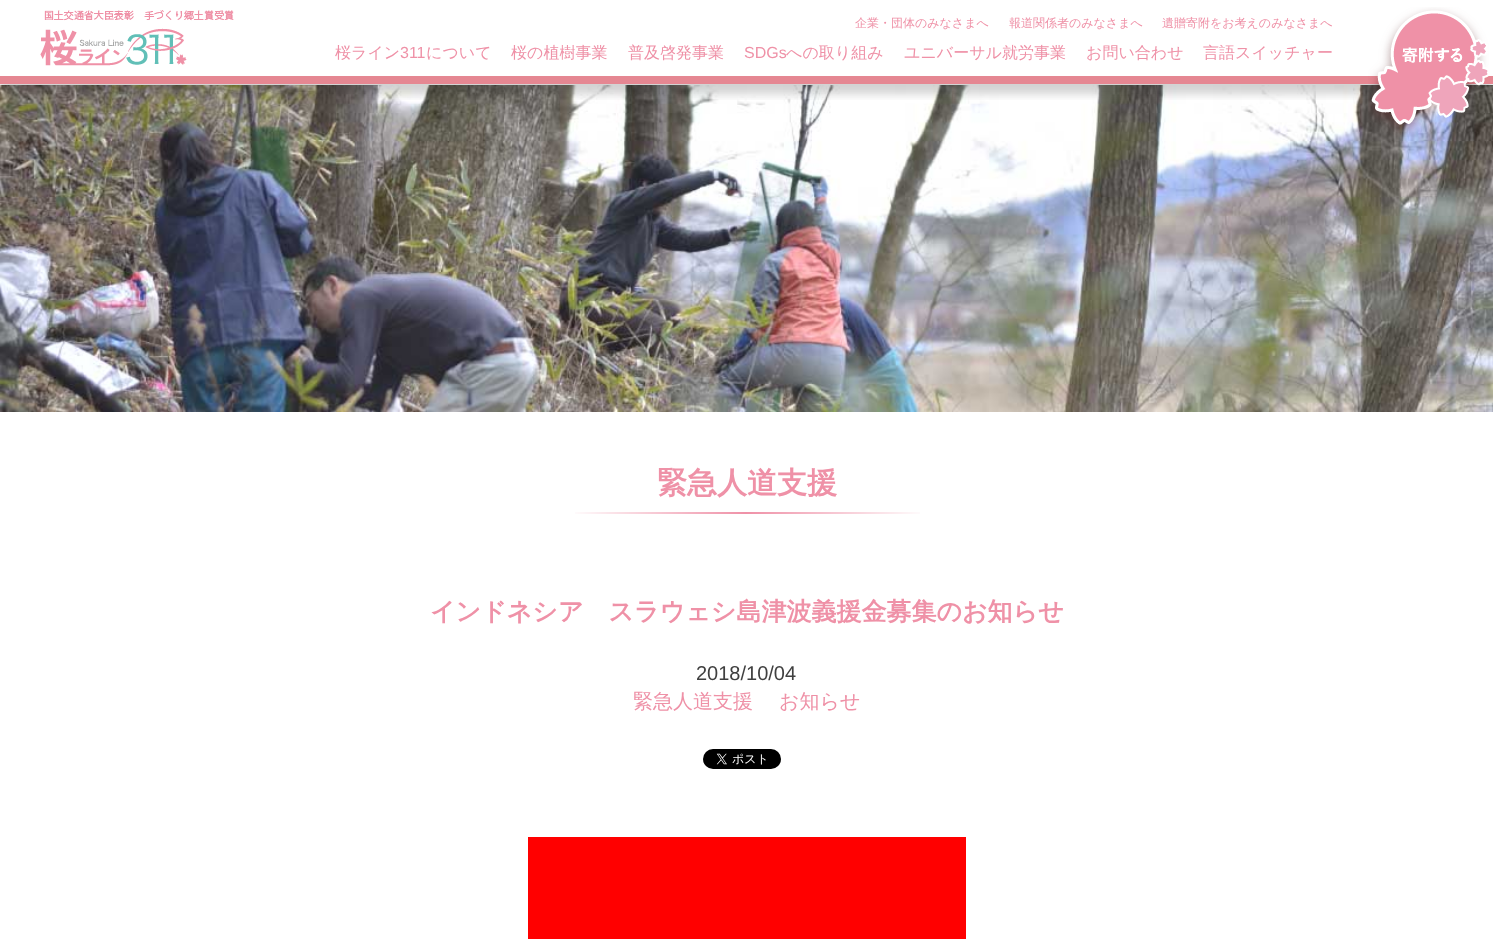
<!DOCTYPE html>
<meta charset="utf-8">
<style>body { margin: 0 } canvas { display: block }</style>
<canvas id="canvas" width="1493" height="939"></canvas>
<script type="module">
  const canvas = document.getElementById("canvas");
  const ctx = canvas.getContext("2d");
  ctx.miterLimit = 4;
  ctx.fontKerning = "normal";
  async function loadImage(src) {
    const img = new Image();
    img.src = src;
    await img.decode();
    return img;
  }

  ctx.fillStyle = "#ffffff";
  ctx.fillRect(0, 0, 1493, 939);
  ctx.drawImage(await loadImage("img3.png"), 0, 85, 1493, 327);
  ctx.save();
  ctx.beginPath();
  ctx.rect(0, 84, 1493, 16);
  ctx.clip();
  ctx.fillStyle = "rgba(31, 31, 31, 0.2)";
  ctx.filter = "blur(5px)";
  ctx.beginPath();
  ctx.rect(0, 10, 1493, 84);
  ctx.fill();
  ctx.filter = "none";
  ctx.restore();
  ctx.fillStyle = "#e58792";
  ctx.fillRect(0, 76, 1493, 8);
  ctx.drawImage(await loadImage("img1.png"), 40, 10, 194, 56);
  ctx.font = "500 12px WenQuanYi Zen Hei";
  ctx.fillStyle = "#ef91a7";
  ctx.fillText("企業・団体のみなさまへ", 855, 27);
  ctx.fillText("報道関係者のみなさまへ", 1009, 27);
  ctx.fillText("遺贈寄附をお考えのみなさまへ", 1162, 27);
  ctx.drawImage(await loadImage("img2.png"), 1368, 7, 121, 130);
  ctx.font = "500 16px WenQuanYi Zen Hei";
  ctx.fillText("桜ライン", 335, 58);
  ctx.font = "16px Liberation Sans";
  ctx.fillText("311", 400, 58);
  ctx.font = "500 16px WenQuanYi Zen Hei";
  ctx.fillText("について", 426, 58);
  ctx.fillText("桜の植樹事業", 511, 58);
  ctx.fillText("普及啓発事業", 628, 58);
  ctx.font = "16px Liberation Sans";
  ctx.fillText("SDGs", 744, 58);
  ctx.font = "500 16px WenQuanYi Zen Hei";
  ctx.fillText("への取り組み", 786, 58);
  ctx.fillText("ユニバーサル就労事業", 904, 58);
  ctx.fillText("お問い合わせ", 1086, 58);
  ctx.fillText("言語スイッチャー", 1203, 58);
  ctx.drawImage(await loadImage("img4.png"), 575, 512, 345, 2);
  ctx.font = "bold 30px WenQuanYi Zen Hei";
  ctx.fillText("緊急人道支援", 657, 493);
  ctx.font = "bold 25px WenQuanYi Zen Hei";
  ctx.fillText("インドネシア　スラウェシ島津波義援金募集のお知らせ", 430, 620);
  ctx.font = "20px Liberation Sans";
  ctx.fillStyle = "#404040";
  ctx.fillText("2018/10/04", 696, 680);
  ctx.font = "500 20px WenQuanYi Zen Hei";
  ctx.fillStyle = "#ef91a7";
  ctx.fillText("緊急人道支援", 633, 708);
  ctx.fillText("お知らせ", 779, 708);
  ctx.drawImage(await loadImage("img5.png"), 703, 749, 78, 20);
  ctx.fillStyle = "#ff0000";
  ctx.fillRect(528, 837, 438, 102);
</script>
